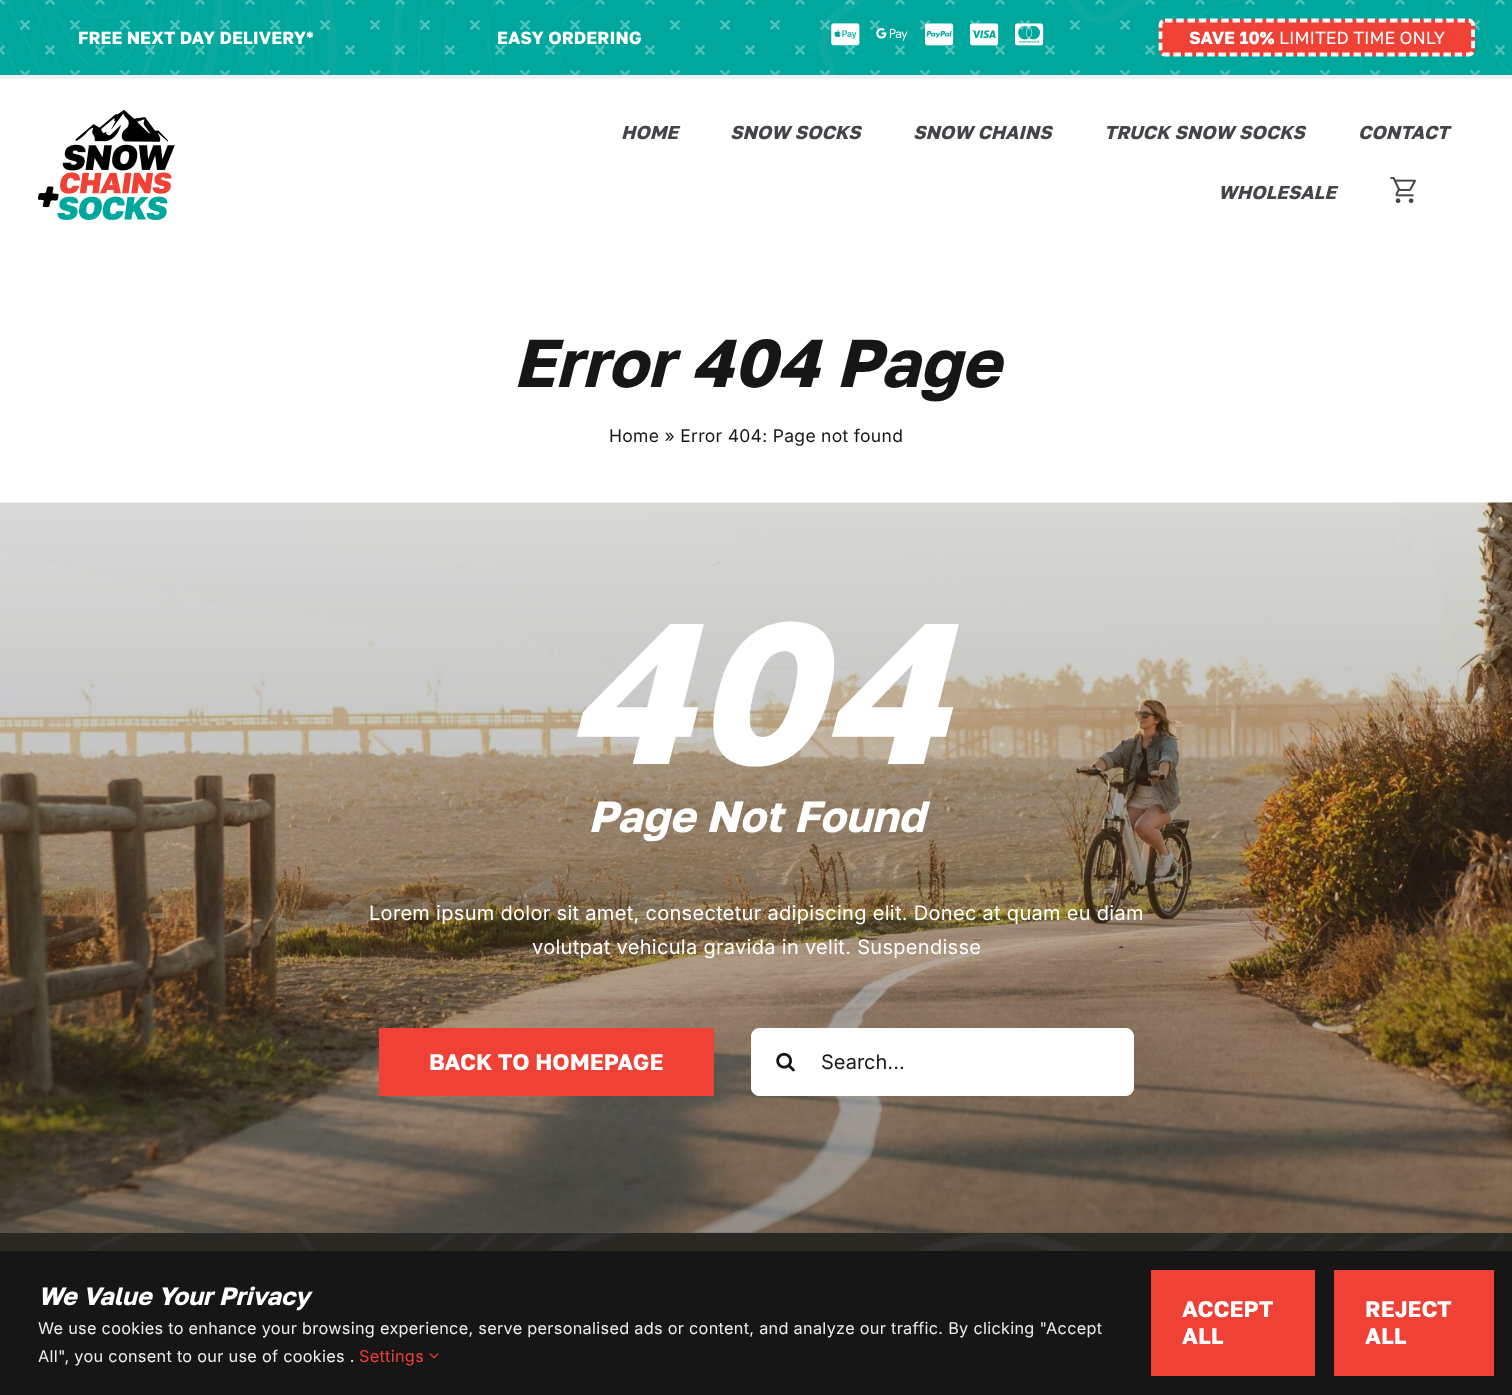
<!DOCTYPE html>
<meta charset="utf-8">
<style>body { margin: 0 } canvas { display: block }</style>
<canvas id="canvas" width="1512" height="1395"></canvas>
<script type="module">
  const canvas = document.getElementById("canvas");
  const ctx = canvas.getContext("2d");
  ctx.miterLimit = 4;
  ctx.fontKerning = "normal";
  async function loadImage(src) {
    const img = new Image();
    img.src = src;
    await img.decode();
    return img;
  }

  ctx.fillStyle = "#ffffff";
  ctx.fillRect(0, 0, 1512, 1395);
  ctx.fillStyle = "#00a79d";
  ctx.fillRect(0, 0, 1512, 75);
  ctx.drawImage(await loadImage("img1.png"), 0, 0, 1512, 75);
  ctx.fillStyle = "#efefef";
  ctx.fillRect(0, 75, 1512, 3);
  ctx.drawImage(await loadImage("img2.png"), 0, 0, 1506, 75);
  ctx.font = "bold 17.5px Golos Text";
  ctx.fillStyle = "#ffffff";
  ctx.fillText("FREE NEXT DAY DELIVERY*", 78, 44);
  ctx.fillText("EASY ORDERING", 497, 44);
  ctx.drawImage(await loadImage("img3.png"), 831, 23, 29, 23);
  ctx.drawImage(await loadImage("img4.png"), 876, 28, 32, 13);
  ctx.drawImage(await loadImage("img5.png"), 925, 23, 29, 23);
  ctx.drawImage(await loadImage("img6.png"), 970, 23, 29, 23);
  ctx.drawImage(await loadImage("img7.png"), 1015, 23, 29, 23);
  ctx.fillStyle = "#ef4136";
  ctx.beginPath();
  ctx.roundRect(1159, 19, 316, 37, 6);
  ctx.fill();
  ctx.beginPath();
  ctx.moveTo(1165, 20.5);
  ctx.lineTo(1469, 20.5);
  ctx.bezierCurveTo(1471, 20.5, 1473, 22.5, 1473, 25);
  ctx.lineTo(1473, 50);
  ctx.bezierCurveTo(1473, 52.5, 1471, 54.5, 1469, 54.5);
  ctx.lineTo(1165, 54.5);
  ctx.bezierCurveTo(1162.5, 54.5, 1160.5, 52.5, 1160.5, 50);
  ctx.lineTo(1160.5, 25);
  ctx.bezierCurveTo(1160.5, 22.5, 1162.5, 20.5, 1165, 20.5);
  ctx.closePath();
  ctx.strokeStyle = "#f7f7f7";
  ctx.lineWidth = 3.8;
  ctx.setLineDash([7.5, 3.75]);
  ctx.stroke();
  ctx.fillStyle = "#ffffff";
  ctx.fillText("SAVE 10%", 1189, 44);
  ctx.font = "17.5px Golos Text";
  ctx.fillText("LIMITED TIME ONLY", 1279, 44);
  ctx.drawImage(await loadImage("img8.png"), 38, 110, 137, 110);
  ctx.font = "italic bold 18.75px Golos Text";
  ctx.fillStyle = "#434549";
  ctx.fillText("HOME", 621, 139);
  ctx.fillText("SNOW SOCKS", 730, 139);
  ctx.fillText("SNOW CHAINS", 913, 139);
  ctx.fillText("TRUCK SNOW SOCKS", 1104, 139);
  ctx.fillText("CONTACT", 1358, 139);
  ctx.fillText("WHOLESALE", 1218, 199);
  ctx.drawImage(await loadImage("img9.png"), 1390, 177, 26, 27);
  ctx.font = "italic bold 67.5px Golos Text";
  ctx.fillStyle = "#161616";
  ctx.fillText("Error 404 Page", 513, 387);
  ctx.letterSpacing = "0.3px";
  ctx.font = "17.5px Inter";
  ctx.fillText("Home » Error 404: Page not found", 609, 442);
  ctx.fillStyle = "#434549";
  ctx.fillRect(0, 1232, 1512, 1);
  ctx.drawImage(await loadImage("img10.png"), 0, 502, 1512, 731);
  ctx.letterSpacing = "0px";
  ctx.font = "italic bold 200px Golos Text";
  ctx.fillStyle = "#ffffff";
  ctx.fillText("404", 566, 764);
  ctx.font = "italic bold 43.75px Golos Text";
  ctx.fillText("Page Not Found", 588, 832);
  ctx.letterSpacing = "0.3px";
  ctx.font = "20px Inter";
  ctx.fillText("Lorem ipsum dolor sit amet, consectetur adipiscing elit. Donec at quam eu diam", 369, 920);
  ctx.fillText("volutpat vehicula gravida in velit. Suspendisse", 532, 954);
  ctx.fillStyle = "#ef4136";
  ctx.fillRect(379, 1028, 335, 68);
  ctx.letterSpacing = "0px";
  ctx.font = "bold 22.5px Golos Text";
  ctx.fillStyle = "#ffffff";
  ctx.fillText("BACK TO HOMEPAGE", 429, 1070);
  ctx.beginPath();
  ctx.roundRect(751.5, 1028.5, 382, 67, 7.5);
  ctx.fill();
  ctx.strokeStyle = "#ffffff";
  ctx.lineWidth = 1;
  ctx.setLineDash([]);
  ctx.stroke();
  ctx.drawImage(await loadImage("img11.png"), 776, 1052, 19, 20);
  ctx.font = "20px Inter";
  ctx.fillStyle = "#161616";
  ctx.fillText("Search...", 821, 1069);
  ctx.fillStyle = "#292823";
  ctx.fillRect(0, 1233, 1512, 18);
  ctx.drawImage(await loadImage("img12.png"), 87, 1233, 1418, 18);
  ctx.fillStyle = "#161616";
  ctx.fillRect(0, 1251, 1512, 144);
  ctx.font = "italic bold 25px Golos Text";
  ctx.fillStyle = "#ffffff";
  ctx.fillText("We Value Your Privacy", 38, 1305);
  ctx.letterSpacing = "0.3px";
  ctx.font = "16.25px Inter";
  ctx.fillStyle = "#eeeeee";
  ctx.fillText("We use cookies to enhance your browsing experience, serve personalised ads or content, and analyze our traffic. By clicking \"Accept", 38, 1334);
  ctx.fillText("All\", you consent to our use of cookies .", 38, 1362);
  ctx.fillStyle = "#ef4136";
  ctx.fillText("Settings", 359, 1362);
  ctx.drawImage(await loadImage("img13.png"), 429, 1353, 10, 6);
  ctx.fillRect(1151, 1270, 164, 106);
  ctx.letterSpacing = "0px";
  ctx.font = "bold 22.5px Golos Text";
  ctx.fillStyle = "#ffffff";
  ctx.fillText("ACCEPT", 1182, 1317);
  ctx.fillText("ALL", 1182, 1344);
  ctx.fillStyle = "#ef4136";
  ctx.fillRect(1334, 1270, 160, 106);
  ctx.fillStyle = "#ffffff";
  ctx.fillText("REJECT", 1365, 1317);
  ctx.fillText("ALL", 1365, 1344);
</script>
